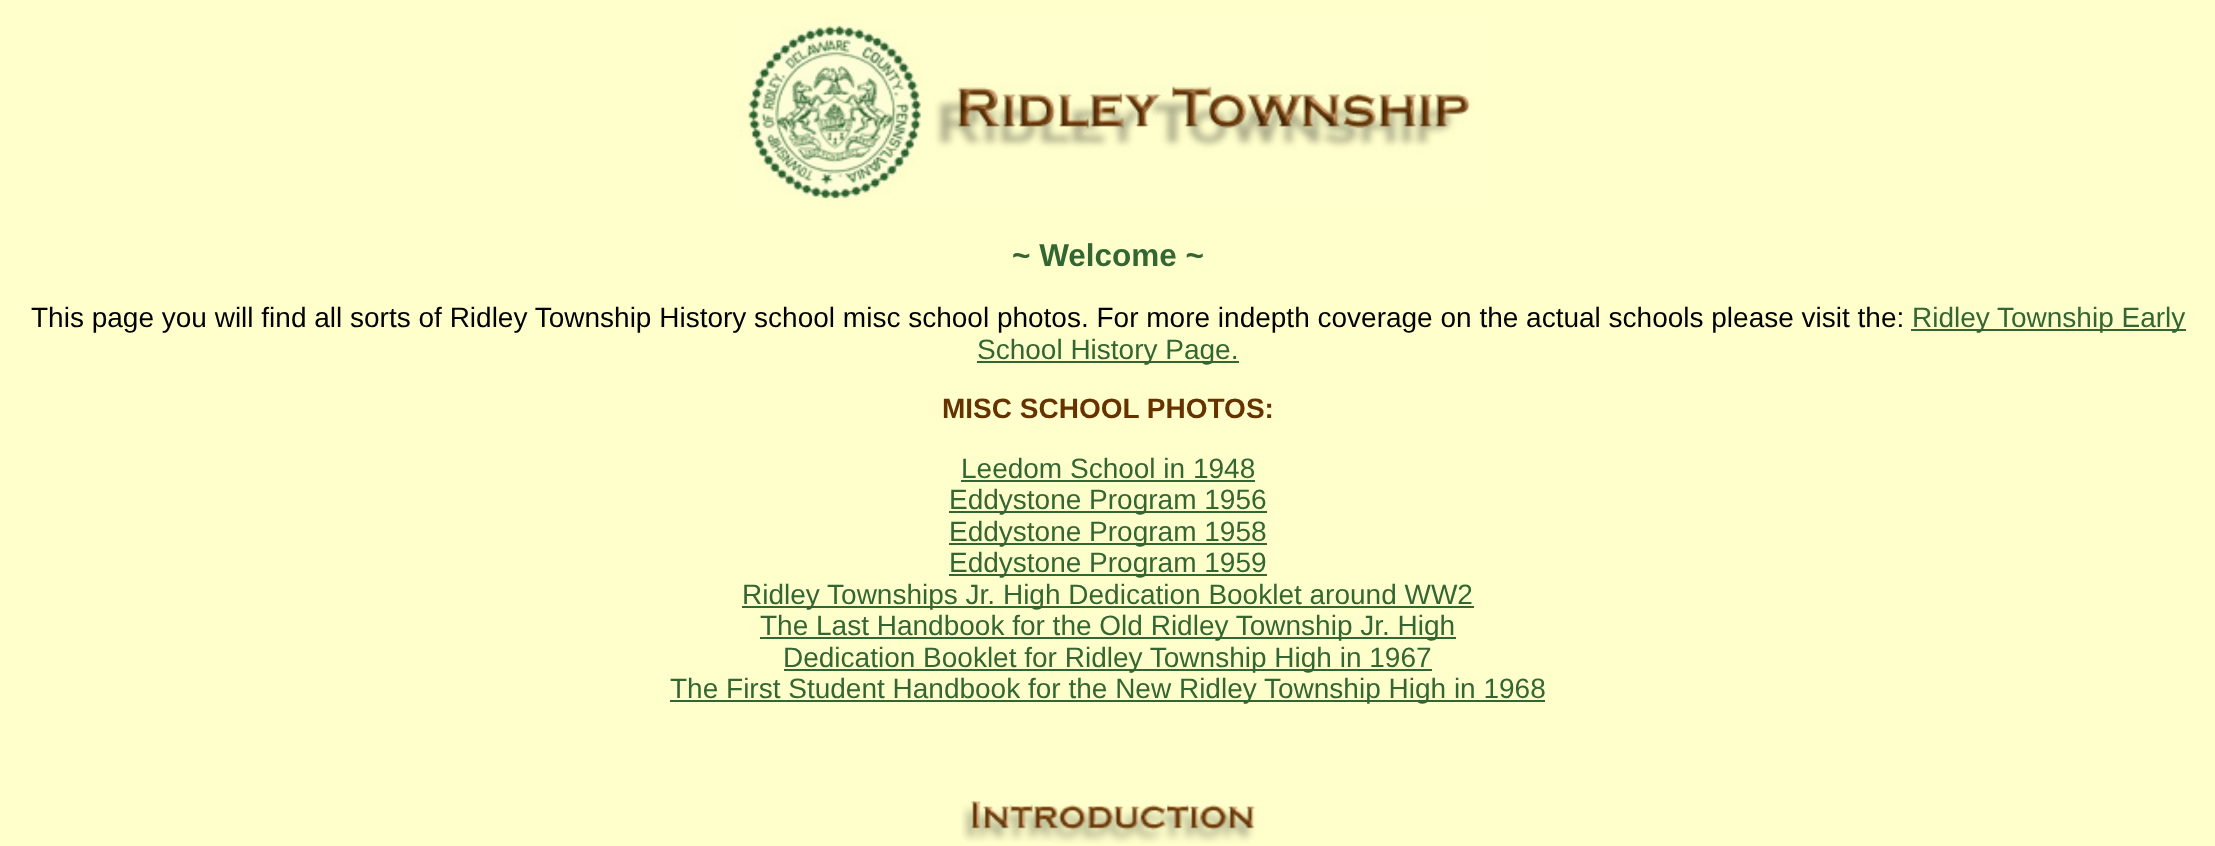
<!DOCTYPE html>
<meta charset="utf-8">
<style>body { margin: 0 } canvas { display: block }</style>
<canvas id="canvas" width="2215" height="846"></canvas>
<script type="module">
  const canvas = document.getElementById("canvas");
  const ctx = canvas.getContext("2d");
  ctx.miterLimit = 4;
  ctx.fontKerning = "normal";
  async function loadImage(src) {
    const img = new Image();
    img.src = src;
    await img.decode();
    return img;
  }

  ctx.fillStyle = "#ffffcc";
  ctx.fillRect(0, 0, 2215, 846);
  ctx.drawImage(await loadImage("img1.png"), 738, 18, 737, 188);
  ctx.font = "bold 31.5px Liberation Sans";
  ctx.fillStyle = "#336633";
  ctx.fillText("~ Welcome ~", 1012, 266);
  ctx.font = "28px Liberation Sans";
  ctx.fillStyle = "#000000";
  ctx.fillText("This page you will find all sorts of Ridley Township History school misc school photos. For more indepth coverage on the actual schools please visit the:", 31, 327);
  ctx.fillStyle = "#336633";
  ctx.fillRect(1911, 329, 275, 2);
  ctx.fillText("Ridley", 1912, 327);
  ctx.fillText("Township Early", 1997, 327);
  ctx.fillRect(977, 361, 262, 2);
  ctx.fillText("School History Page.", 977, 359);
  ctx.font = "bold 28px Liberation Sans";
  ctx.fillStyle = "#663300";
  ctx.fillText("MISC SCHOOL PHOTOS:", 942, 418);
  ctx.font = "28px Liberation Sans";
  ctx.fillStyle = "#336633";
  ctx.fillText("Leedom School in 1948", 961, 478);
  ctx.fillRect(961, 480, 294, 2);
  ctx.fillRect(949, 511, 318, 2);
  ctx.fillText("Eddystone Program 1956", 949, 509);
  ctx.fillRect(949, 543, 318, 2);
  ctx.fillText("Eddystone Program 1958", 949, 541);
  ctx.fillRect(949, 574, 318, 2);
  ctx.fillText("Eddystone Program 1959", 949, 572);
  ctx.fillRect(742, 606, 732, 2);
  ctx.fillText("Ridley Townships Jr. High Dedication Booklet around WW2", 742, 604);
  ctx.fillRect(760, 637, 696, 2);
  ctx.fillText("The Last Handbook for the Old Ridley Township Jr. High", 760, 635);
  ctx.fillRect(784, 669, 648, 2);
  ctx.fillText("Dedication Booklet for Ridley Township High in 1967", 783, 667);
  ctx.fillRect(670, 700, 875, 2);
  ctx.fillText("The First Student Handbook for the New Ridley Township High in 1968", 670, 698);
  ctx.drawImage(await loadImage("img2.png"), 961, 801, 295, 39);
  ctx.drawImage(await loadImage("img3.png"), 966, 840, 86, 2);
  ctx.drawImage(await loadImage("img4.png"), 1052, 840, 197, 4);
</script>
